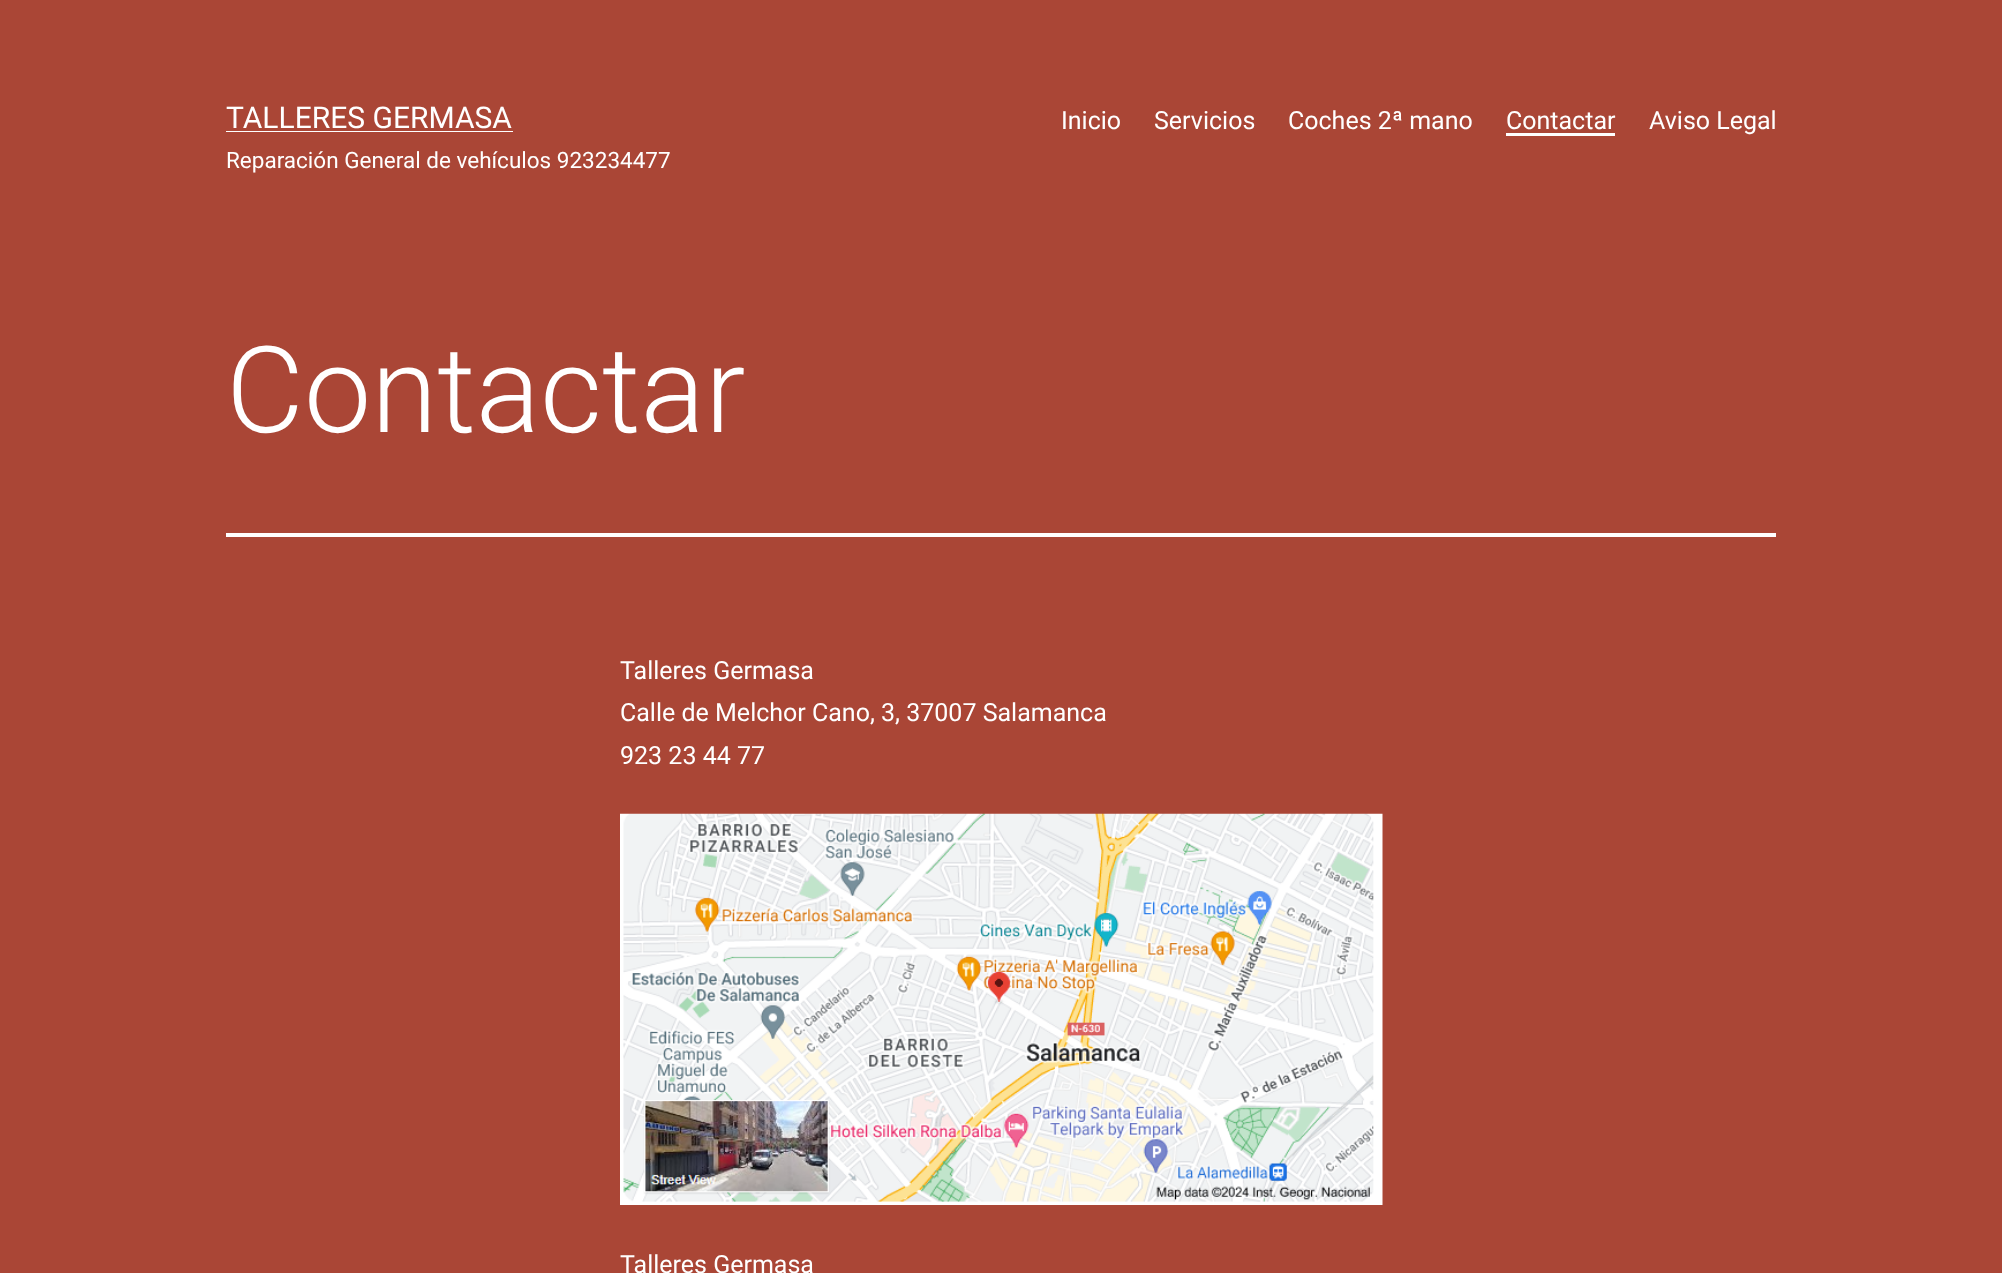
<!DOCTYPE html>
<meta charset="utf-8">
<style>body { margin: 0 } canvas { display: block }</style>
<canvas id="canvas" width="2002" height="1273"></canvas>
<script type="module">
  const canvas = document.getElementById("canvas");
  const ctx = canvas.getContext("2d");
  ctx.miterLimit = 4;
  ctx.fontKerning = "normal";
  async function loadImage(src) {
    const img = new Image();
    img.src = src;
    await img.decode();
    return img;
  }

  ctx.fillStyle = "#aa4636";
  ctx.fillRect(0, 0, 2002, 1273);
  ctx.font = "30px Roboto";
  ctx.fillStyle = "#ffffff";
  ctx.fillText("TALLERES GERMASA", 226, 128);
  ctx.fillRect(226, 131, 287, 1);
  ctx.font = "22.5px Roboto";
  ctx.fillText("Reparación General de vehículos 923234477", 226, 168);
  ctx.font = "25px Roboto";
  ctx.fillText("Inicio", 1061, 129);
  ctx.fillText("Servicios", 1154, 129);
  ctx.fillText("Coches 2ª mano", 1288, 129);
  ctx.fillText("Contactar", 1506, 129);
  ctx.fillRect(1506, 133, 109, 3);
  ctx.fillText("Aviso Legal", 1649, 129);
  ctx.fillRect(226, 533, 1550, 4);
  ctx.font = "300 120px Roboto";
  ctx.fillText("Contactar", 226, 432);
  ctx.font = "25px Roboto";
  ctx.fillText("Talleres Germasa", 620, 679);
  ctx.fillText("Calle de Melchor Cano, 3, 37007 Salamanca", 620, 721);
  ctx.fillText("923 23 44 77", 620, 764);
  ctx.drawImage(await loadImage("img1.png"), 620, 813, 763, 392);
  ctx.fillText("Talleres Germasa", 620, 1273);
</script>
